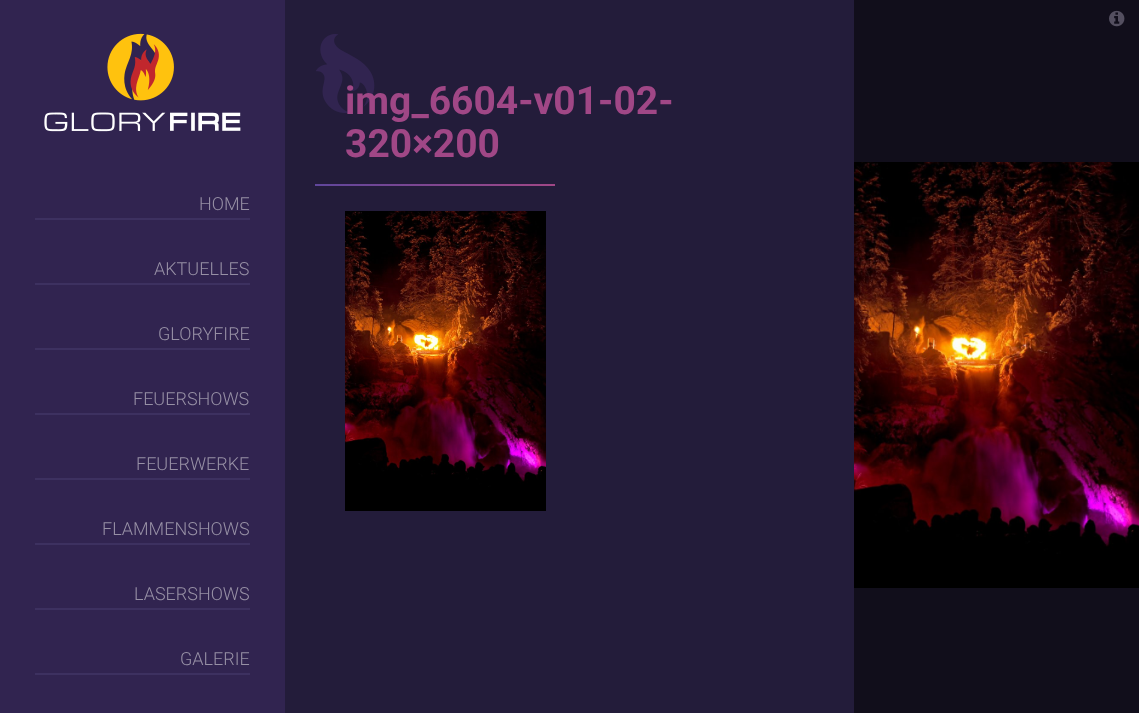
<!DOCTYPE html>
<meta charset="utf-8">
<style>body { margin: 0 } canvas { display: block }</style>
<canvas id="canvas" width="1139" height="713"></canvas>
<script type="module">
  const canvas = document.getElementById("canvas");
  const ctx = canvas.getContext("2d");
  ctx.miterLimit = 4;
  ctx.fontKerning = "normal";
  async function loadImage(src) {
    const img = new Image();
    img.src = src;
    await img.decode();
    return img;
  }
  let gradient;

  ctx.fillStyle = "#110e1b";
  ctx.fillRect(0, 0, 1139, 713);
  ctx.drawImage(await loadImage("img1.png"), 1109, 10, 16, 17);
  ctx.fillStyle = "#231c3a";
  ctx.fillRect(285, 0, 569, 713);
  ctx.drawImage(await loadImage("img2.png"), 316, 34, 59, 79);
  ctx.font = "bold 39px Roboto";
  ctx.fillStyle = "#a04786";
  ctx.fillText("img_6604-v01-02-", 345, 114);
  ctx.fillText("320×200", 345, 157);
  gradient = ctx.createLinearGradient(315, 185, 555, 185);
  gradient.addColorStop(0, "#60469b");
  gradient.addColorStop(1, "#a04786");
  ctx.fillStyle = gradient;
  ctx.fillRect(315, 184, 240, 2);
  ctx.drawImage(await loadImage("img3.png"), 345, 211, 201, 300);
  ctx.drawImage(await loadImage("img4.png"), 854, 162, 285, 426);
  ctx.fillStyle = "#312450";
  ctx.fillRect(0, 0, 285, 713);
  ctx.drawImage(await loadImage("img5.png"), 44, 33, 197, 99);
  ctx.fillStyle = "#3d3160";
  ctx.fillRect(35, 218, 215, 2);
  ctx.font = "300 18px Roboto";
  ctx.fillStyle = "#9790a5";
  ctx.fillText("HOME", 199, 210);
  ctx.fillStyle = "#3d3160";
  ctx.fillRect(35, 283, 215, 2);
  ctx.fillStyle = "#9790a5";
  ctx.fillText("AKTUELLES", 154, 275);
  ctx.fillStyle = "#3d3160";
  ctx.fillRect(35, 348, 215, 2);
  ctx.fillStyle = "#9790a5";
  ctx.fillText("GLORYFIRE", 158, 340);
  ctx.fillStyle = "#3d3160";
  ctx.fillRect(35, 413, 215, 2);
  ctx.fillStyle = "#9790a5";
  ctx.fillText("FEUERSHOWS", 133, 405);
  ctx.fillStyle = "#3d3160";
  ctx.fillRect(35, 478, 215, 2);
  ctx.fillStyle = "#9790a5";
  ctx.fillText("FEUERWERKE", 136, 470);
  ctx.fillStyle = "#3d3160";
  ctx.fillRect(35, 543, 215, 2);
  ctx.fillStyle = "#9790a5";
  ctx.fillText("FLAMMENSHOWS", 102, 535);
  ctx.fillStyle = "#3d3160";
  ctx.fillRect(35, 608, 215, 2);
  ctx.fillStyle = "#9790a5";
  ctx.fillText("LASERSHOWS", 134, 600);
  ctx.fillStyle = "#3d3160";
  ctx.fillRect(35, 673, 215, 2);
  ctx.fillStyle = "#9790a5";
  ctx.fillText("GALERIE", 180, 665);
</script>
